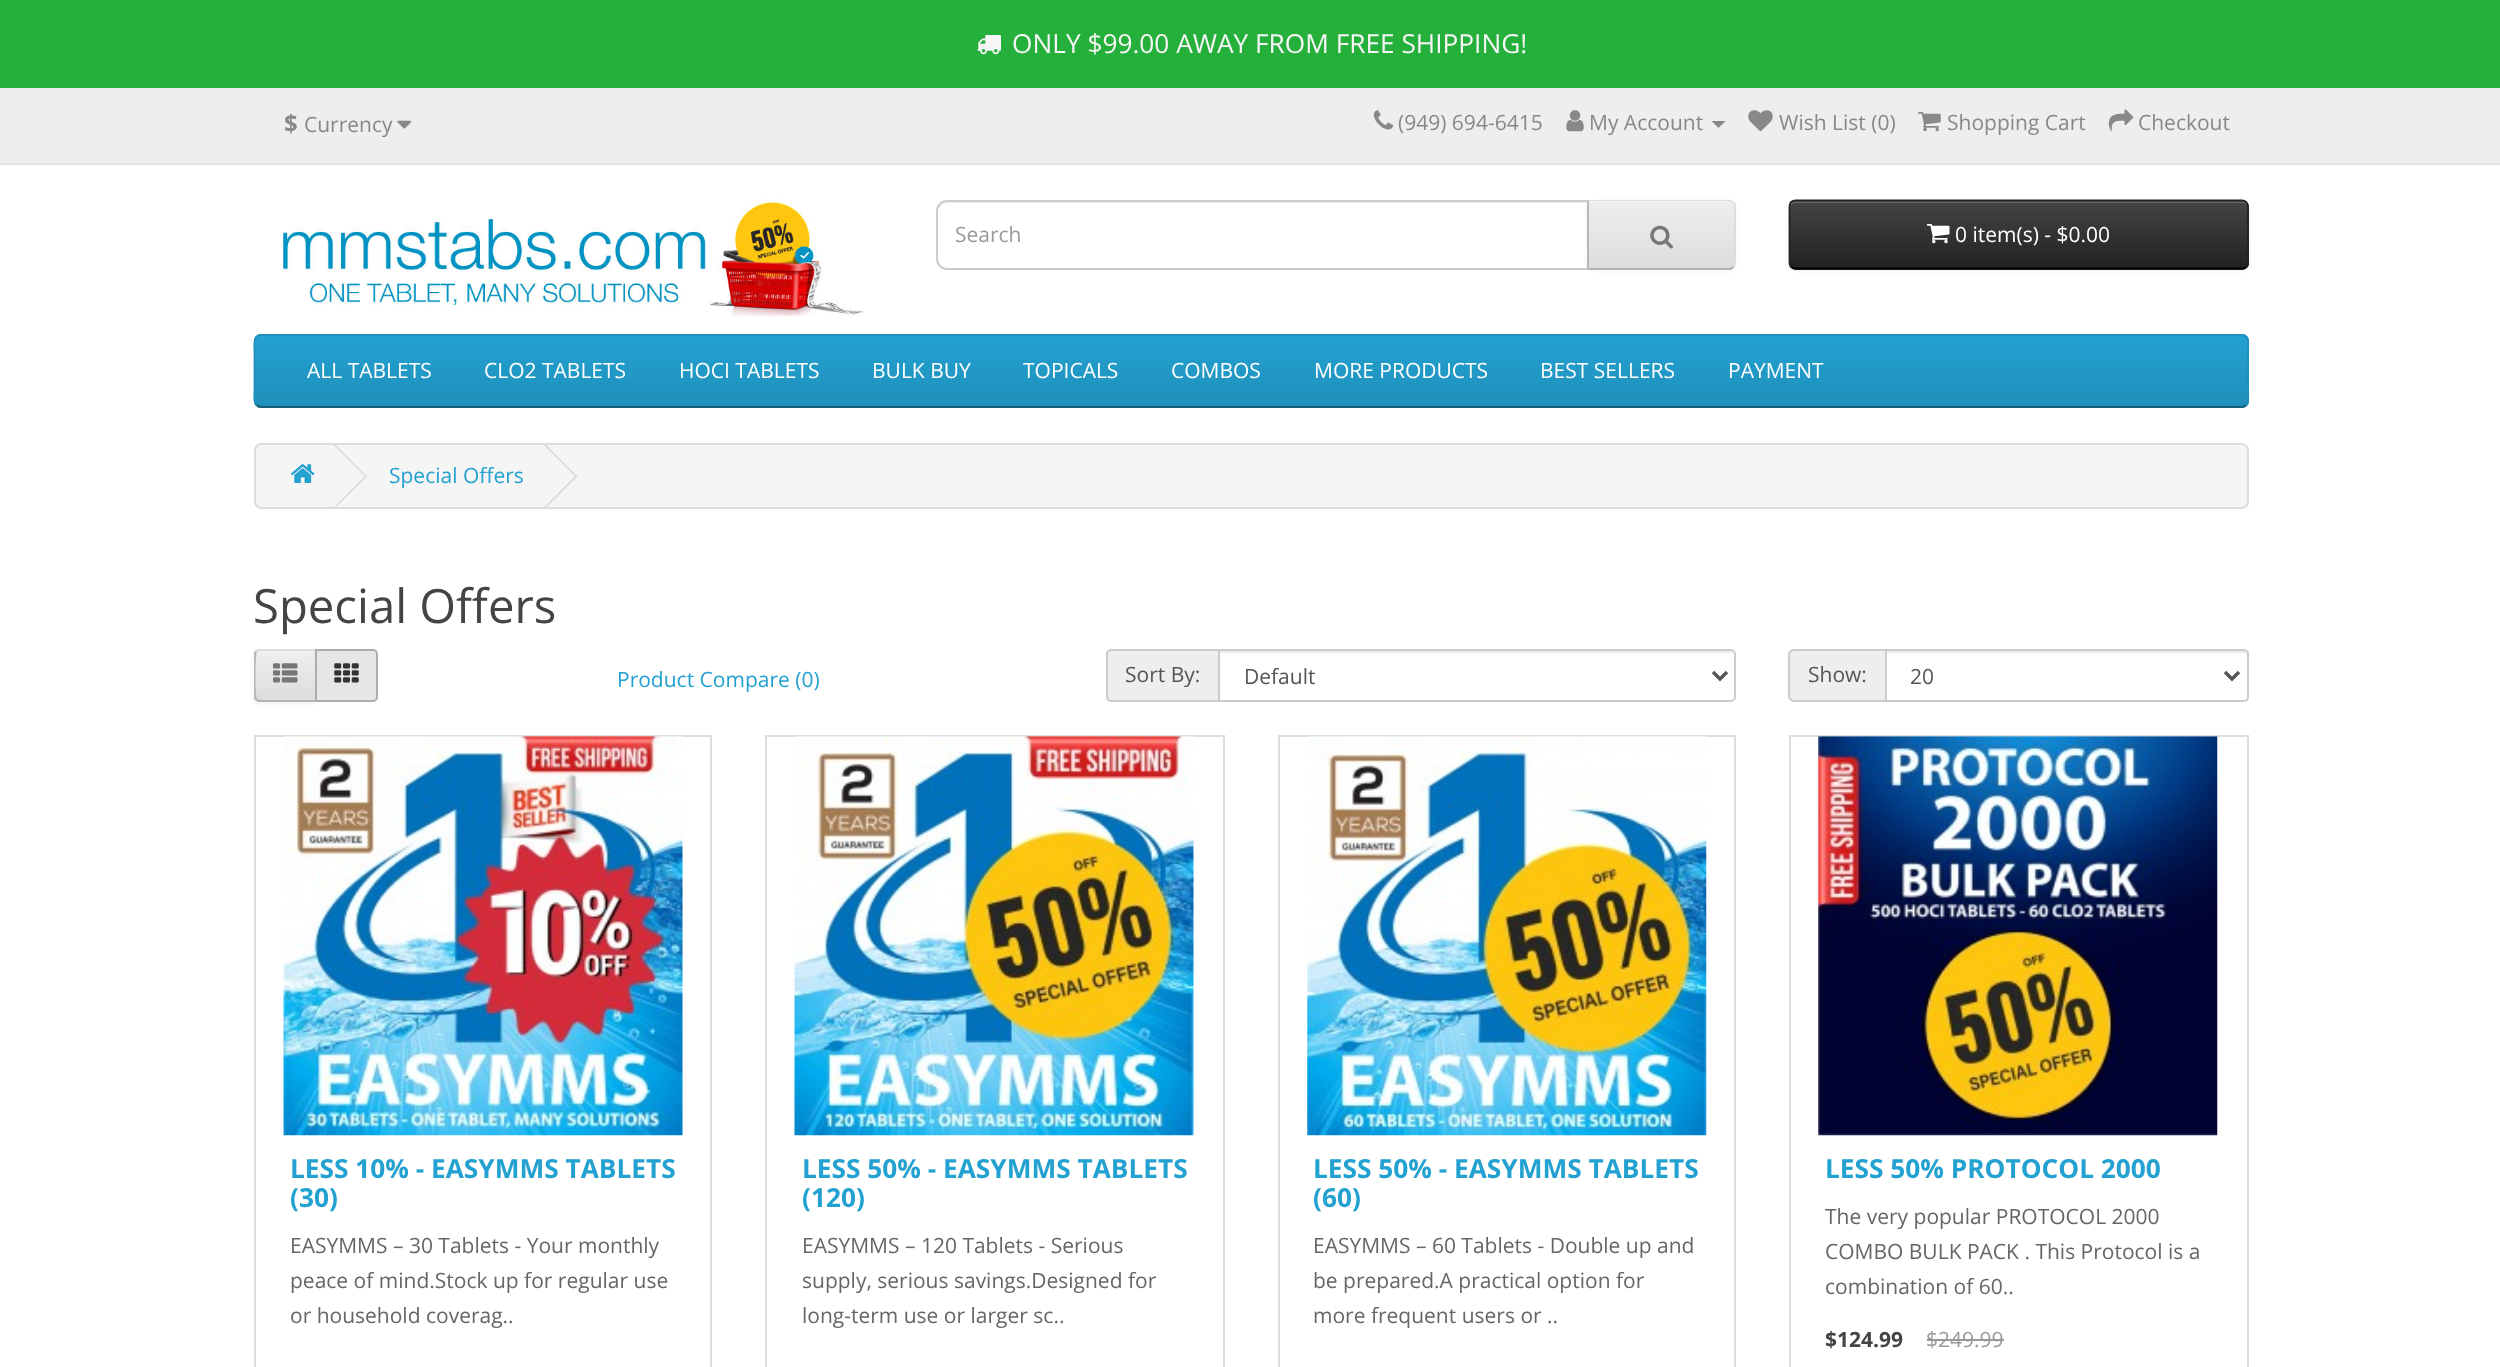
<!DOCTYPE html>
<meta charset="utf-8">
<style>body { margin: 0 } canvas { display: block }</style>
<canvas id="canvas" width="2500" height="1367"></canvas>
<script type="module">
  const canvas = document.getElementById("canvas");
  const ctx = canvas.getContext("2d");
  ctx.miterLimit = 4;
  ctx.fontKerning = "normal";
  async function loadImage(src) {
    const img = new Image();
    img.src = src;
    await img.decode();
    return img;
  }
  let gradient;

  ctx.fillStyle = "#ffffff";
  ctx.fillRect(0, 0, 2500, 1367);
  ctx.fillStyle = "#25b03b";
  ctx.fillRect(0, 0, 2500, 88);
  ctx.drawImage(await loadImage("img1.png"), 977, 35, 24, 20);
  ctx.font = "26.25px Open Sans";
  ctx.fillStyle = "#f7f5f5";
  ctx.fillText("ONLY $99.00 AWAY FROM FREE SHIPPING!", 1012, 53);
  ctx.fillStyle = "#eeeeee";
  ctx.fillRect(0, 88, 2500, 75);
  ctx.fillStyle = "#e2e2e2";
  ctx.fillRect(0, 163, 2500, 2);
  ctx.font = "bold 24px Open Sans";
  ctx.fillStyle = "#888888";
  ctx.fillText("$", 284, 132);
  ctx.font = "21px Open Sans";
  ctx.fillText("Currency", 304, 132);
  ctx.drawImage(await loadImage("img2.png"), 397, 120, 15, 9);
  ctx.drawImage(await loadImage("img3.png"), 1373, 110, 20, 20);
  ctx.fillText("(949) 694-6415", 1398, 130);
  ctx.drawImage(await loadImage("img4.png"), 1566, 110, 18, 22);
  ctx.fillText("My Account", 1589, 130);
  ctx.beginPath();
  ctx.moveTo(1711.5, 121);
  ctx.lineTo(1725.5, 121);
  ctx.lineTo(1718.5, 128);
  ctx.closePath();
  ctx.fill();
  ctx.drawImage(await loadImage("img5.png"), 1748, 110, 25, 22);
  ctx.fillText("Wish List (0)", 1779, 130);
  ctx.drawImage(await loadImage("img6.png"), 1918, 112, 23, 20);
  ctx.fillText("Shopping Cart", 1947, 130);
  ctx.drawImage(await loadImage("img7.png"), 2108, 109, 26, 23);
  ctx.fillText("Checkout", 2138, 130);
  ctx.drawImage(await loadImage("img8.png"), 281, 199, 584, 118);
  ctx.fillStyle = "#ececec";
  ctx.beginPath();
  ctx.moveTo(947, 203);
  ctx.lineTo(1587, 203);
  ctx.lineTo(1587, 201);
  ctx.lineTo(947, 201);
  ctx.bezierCurveTo(942, 201, 938, 205, 938, 210);
  ctx.lineTo(938, 212);
  ctx.bezierCurveTo(938, 207, 942, 203, 947, 203);
  ctx.closePath();
  ctx.fill();
  ctx.beginPath();
  ctx.roundRect(937, 201, 651, 68, [10, 0, 0, 10]);
  ctx.strokeStyle = "#cccccc";
  ctx.lineWidth = 2;
  ctx.stroke();
  ctx.save();
  ctx.beginPath();
  ctx.rect(956, 221, 614, 29);
  ctx.clip();
  ctx.fillStyle = "#999999";
  ctx.fillText("Search", 955, 242);
  ctx.restore();
  ctx.fillStyle = "rgba(0, 0, 0, 0.05)";
  ctx.filter = "blur(2px)";
  ctx.beginPath();
  ctx.roundRect(1587, 201, 149, 70, 7);
  ctx.fill();
  ctx.filter = "none";
  ctx.fillStyle = "#e7e7e7";
  ctx.beginPath();
  ctx.roundRect(1587, 200, 149, 70, [0, 7, 7, 0]);
  ctx.fill();
  ctx.save();
  ctx.beginPath();
  ctx.roundRect(1587, 200, 149, 70, [0, 7, 7, 0]);
  ctx.clip();
  gradient = ctx.createLinearGradient(1662, 201, 1662, 268);
  gradient.addColorStop(0, "#eeeeee");
  gradient.addColorStop(1, "#dddddd");
  ctx.fillStyle = gradient;
  ctx.fillRect(1589, 201, 147, 67);
  ctx.restore();
  ctx.fillStyle = "#f1f1f1";
  ctx.beginPath();
  ctx.moveTo(1589, 203);
  ctx.lineTo(1729, 203);
  ctx.bezierCurveTo(1732, 203, 1734, 205, 1734, 208);
  ctx.lineTo(1734, 206);
  ctx.bezierCurveTo(1734, 203, 1732, 201, 1729, 201);
  ctx.lineTo(1589, 201);
  ctx.closePath();
  ctx.fill();
  ctx.fillStyle = "#dddddd";
  ctx.beginPath();
  ctx.moveTo(1589, 201);
  ctx.lineTo(1730, 201);
  ctx.lineTo(1733, 203);
  ctx.lineTo(1734, 202);
  ctx.lineTo(1730, 200);
  ctx.lineTo(1588, 200);
  ctx.closePath();
  ctx.fill();
  ctx.beginPath();
  ctx.moveTo(1734, 202);
  ctx.bezierCurveTo(1735, 203, 1736, 204, 1736, 206);
  ctx.lineTo(1736, 262);
  ctx.bezierCurveTo(1736, 264, 1735, 266, 1734, 268);
  ctx.lineTo(1733, 266);
  ctx.bezierCurveTo(1734, 265, 1734, 264, 1734, 262);
  ctx.lineTo(1734, 206);
  ctx.bezierCurveTo(1734, 205, 1734, 204, 1733, 203);
  ctx.closePath();
  ctx.fill();
  ctx.fillStyle = "#b3b3b3";
  ctx.beginPath();
  ctx.moveTo(1734, 268);
  ctx.lineTo(1731, 270);
  ctx.lineTo(1587, 270);
  ctx.lineTo(1589, 268);
  ctx.lineTo(1729, 268);
  ctx.bezierCurveTo(1730, 268, 1732, 267, 1733, 266);
  ctx.closePath();
  ctx.fill();
  ctx.fillStyle = "#b7b7b7";
  ctx.beginPath();
  ctx.moveTo(1587, 270);
  ctx.lineTo(1589, 268);
  ctx.lineTo(1589, 201);
  ctx.lineTo(1587, 200);
  ctx.closePath();
  ctx.fill();
  ctx.drawImage(await loadImage("img9.png"), 1650, 225, 23, 24);
  ctx.fillStyle = "rgba(0, 0, 0, 0.05)";
  ctx.filter = "blur(2px)";
  ctx.beginPath();
  ctx.roundRect(1789, 201, 460, 70, 7);
  ctx.fill();
  ctx.filter = "none";
  ctx.fillStyle = "#363636";
  ctx.beginPath();
  ctx.roundRect(1789, 200, 460, 70, 7);
  ctx.fill();
  ctx.save();
  ctx.beginPath();
  ctx.roundRect(1789, 200, 460, 70, 7);
  ctx.clip();
  gradient = ctx.createLinearGradient(2019, 201, 2019, 268);
  gradient.addColorStop(0, "#444444");
  gradient.addColorStop(1, "#222222");
  ctx.fillStyle = gradient;
  ctx.fillRect(1789, 201, 460, 67);
  ctx.restore();
  ctx.fillStyle = "#696969";
  ctx.beginPath();
  ctx.moveTo(1796, 203);
  ctx.lineTo(2242, 203);
  ctx.bezierCurveTo(2245, 203, 2247, 205, 2247, 208);
  ctx.bezierCurveTo(2247, 205, 2246, 201, 2242, 201);
  ctx.lineTo(1795, 201);
  ctx.bezierCurveTo(1791, 201, 1790, 205, 1790, 208);
  ctx.bezierCurveTo(1790, 205, 1793, 203, 1796, 203);
  ctx.closePath();
  ctx.fill();
  ctx.beginPath();
  ctx.moveTo(2246, 267);
  ctx.bezierCurveTo(2245, 268, 2243.5, 268.5, 2242, 268.5);
  ctx.lineTo(1795.5, 268.5);
  ctx.bezierCurveTo(1794, 268.5, 1792.5, 268, 1791, 267);
  ctx.strokeStyle = "#000000";
  ctx.lineWidth = 1.8;
  ctx.stroke();
  ctx.beginPath();
  ctx.moveTo(1791, 267);
  ctx.bezierCurveTo(1790, 265.5, 1789.5, 264, 1789.5, 262.5);
  ctx.lineTo(1789.5, 206.5);
  ctx.bezierCurveTo(1789.5, 205, 1790, 203.5, 1791, 202);
  ctx.bezierCurveTo(1792.5, 201, 1794, 200.5, 1795.5, 200.5);
  ctx.lineTo(2242, 200.5);
  ctx.bezierCurveTo(2243.5, 200.5, 2245, 201, 2246, 202);
  ctx.bezierCurveTo(2247, 203.5, 2248, 205, 2248, 206.5);
  ctx.lineTo(2248, 262.5);
  ctx.bezierCurveTo(2248, 264, 2247, 265.5, 2246, 267);
  ctx.strokeStyle = "#222222";
  ctx.stroke();
  ctx.drawImage(await loadImage("img10.png"), 1926, 224, 24, 20);
  ctx.fillStyle = "#ffffff";
  ctx.fillText("0 item(s) - $0.00", 1955, 242);
  ctx.fillStyle = "#229ac8";
  ctx.beginPath();
  ctx.roundRect(254, 334, 1995, 74, 7);
  ctx.fill();
  ctx.save();
  ctx.beginPath();
  ctx.roundRect(254, 334, 1995, 74, 7);
  ctx.clip();
  gradient = ctx.createLinearGradient(1251, 336, 1251, 406);
  gradient.addColorStop(0, "#23a1d1");
  gradient.addColorStop(1, "#1f90bb");
  ctx.fillStyle = gradient;
  ctx.fillRect(254, 336, 1995, 70);
  ctx.restore();
  ctx.beginPath();
  ctx.moveTo(2246, 405);
  ctx.bezierCurveTo(2245, 406, 2243.5, 407, 2242, 407);
  ctx.lineTo(261, 407);
  ctx.bezierCurveTo(259, 407, 257.5, 406, 256.5, 405);
  ctx.strokeStyle = "#145e7a";
  ctx.stroke();
  ctx.beginPath();
  ctx.moveTo(256.5, 405);
  ctx.bezierCurveTo(253, 401.5, 254.5, 394, 254.5, 391);
  ctx.lineTo(254.5, 351);
  ctx.bezierCurveTo(254.5, 346.5, 252.5, 335, 261, 335);
  ctx.lineTo(2242, 335);
  ctx.bezierCurveTo(2250, 335, 2248, 346.5, 2248, 351);
  ctx.lineTo(2248, 391);
  ctx.bezierCurveTo(2248, 394, 2249.5, 401.5, 2246, 405);
  ctx.strokeStyle = "#1f90bb";
  ctx.stroke();
  ctx.fillStyle = "#ffffff";
  ctx.fillText("ALL TABLETS", 307, 378);
  ctx.fillText("CLO2 TABLETS", 484, 378);
  ctx.fillText("HOCI TABLETS", 679, 378);
  ctx.fillText("BULK BUY", 872, 378);
  ctx.fillText("TOPICALS", 1023, 378);
  ctx.fillText("COMBOS", 1171, 378);
  ctx.fillText("MORE PRODUCTS", 1314, 378);
  ctx.fillText("BEST SELLERS", 1540, 378);
  ctx.fillText("PAYMENT", 1728, 378);
  ctx.fillStyle = "#f5f5f5";
  ctx.beginPath();
  ctx.roundRect(255, 444, 1993, 64, 6);
  ctx.fill();
  ctx.strokeStyle = "#dddddd";
  ctx.lineWidth = 2;
  ctx.stroke();
  ctx.drawImage(await loadImage("img11.png"), 290, 464, 25, 19);
  ctx.fillStyle = "#dddddd";
  ctx.beginPath();
  ctx.moveTo(334, 445.5);
  ctx.lineTo(335, 444);
  ctx.lineTo(367, 476.5);
  ctx.lineTo(366, 477.5);
  ctx.closePath();
  ctx.fill();
  ctx.beginPath();
  ctx.moveTo(334, 507.5);
  ctx.lineTo(366, 475);
  ctx.lineTo(367, 476.5);
  ctx.lineTo(335, 508.5);
  ctx.closePath();
  ctx.fill();
  ctx.fillStyle = "#23a1d1";
  ctx.fillText("Special Offers", 389, 483);
  ctx.fillStyle = "#dddddd";
  ctx.beginPath();
  ctx.moveTo(544, 445.5);
  ctx.lineTo(545.5, 444);
  ctx.lineTo(577.5, 476.5);
  ctx.lineTo(576, 477.5);
  ctx.closePath();
  ctx.fill();
  ctx.beginPath();
  ctx.moveTo(544, 507.5);
  ctx.lineTo(576, 475);
  ctx.lineTo(577.5, 476.5);
  ctx.lineTo(545.5, 508.5);
  ctx.closePath();
  ctx.fill();
  ctx.font = "47.25px Open Sans";
  ctx.fillStyle = "#444444";
  ctx.fillText("Special Offers", 253, 623);
  ctx.fillStyle = "rgba(0, 0, 0, 0.05)";
  ctx.filter = "blur(2px)";
  ctx.beginPath();
  ctx.roundRect(254, 651, 63, 53, 5);
  ctx.fill();
  ctx.filter = "none";
  ctx.fillStyle = "#e7e7e7";
  ctx.beginPath();
  ctx.roundRect(254, 649, 63, 53, [5, 0, 0, 5]);
  ctx.fill();
  ctx.save();
  ctx.beginPath();
  ctx.roundRect(254, 649, 63, 53, [5, 0, 0, 5]);
  ctx.clip();
  gradient = ctx.createLinearGradient(285, 651, 285, 700);
  gradient.addColorStop(0, "#eeeeee");
  gradient.addColorStop(1, "#dddddd");
  ctx.fillStyle = gradient;
  ctx.fillRect(254, 651, 61, 49);
  ctx.restore();
  ctx.fillStyle = "#f1f1f1";
  ctx.beginPath();
  ctx.moveTo(259, 653);
  ctx.lineTo(315, 653);
  ctx.lineTo(315, 651);
  ctx.lineTo(260, 651);
  ctx.bezierCurveTo(258, 651, 256, 653, 256, 655);
  ctx.lineTo(256, 656);
  ctx.bezierCurveTo(256, 654, 257, 653, 259, 653);
  ctx.closePath();
  ctx.fill();
  ctx.fillStyle = "#dddddd";
  ctx.beginPath();
  ctx.moveTo(259, 651);
  ctx.lineTo(257, 652);
  ctx.lineTo(255, 651);
  ctx.lineTo(258, 649);
  ctx.lineTo(317, 649);
  ctx.lineTo(315, 651);
  ctx.closePath();
  ctx.fill();
  ctx.fillStyle = "#b3b3b3";
  ctx.beginPath();
  ctx.moveTo(317, 702);
  ctx.lineTo(258, 702);
  ctx.lineTo(255, 700);
  ctx.lineTo(257, 699);
  ctx.lineTo(259, 700);
  ctx.lineTo(315, 700);
  ctx.closePath();
  ctx.fill();
  ctx.fillStyle = "#b7b7b7";
  ctx.beginPath();
  ctx.moveTo(255, 700);
  ctx.bezierCurveTo(254, 699, 254, 698, 254, 696);
  ctx.lineTo(254, 654);
  ctx.bezierCurveTo(254, 653, 254, 652, 255, 651);
  ctx.lineTo(257, 652);
  ctx.bezierCurveTo(255, 654, 255, 696, 257, 699);
  ctx.closePath();
  ctx.fill();
  ctx.drawImage(await loadImage("img12.png"), 273, 663, 25, 20);
  ctx.fillStyle = "#e6e6e6";
  ctx.beginPath();
  ctx.roundRect(316, 650, 61, 51, [0, 4, 4, 0]);
  ctx.fill();
  ctx.strokeStyle = "#adadad";
  ctx.stroke();
  ctx.drawImage(await loadImage("img13.png"), 334, 663, 25, 20);
  ctx.font = "21px Open Sans";
  ctx.fillStyle = "#23a1d1";
  ctx.fillText("Product Compare (0)", 617, 687);
  ctx.fillStyle = "#eeeeee";
  ctx.beginPath();
  ctx.roundRect(1106, 649, 112, 53, [5, 0, 0, 5]);
  ctx.fill();
  ctx.fillStyle = "#cccccc";
  ctx.beginPath();
  ctx.moveTo(1111, 649);
  ctx.lineTo(1218, 649);
  ctx.lineTo(1218, 702);
  ctx.lineTo(1111, 702);
  ctx.bezierCurveTo(1108, 702, 1106, 699, 1106, 696);
  ctx.lineTo(1106, 654);
  ctx.bezierCurveTo(1106, 652, 1108, 649, 1111, 649);
  ctx.closePath();
  ctx.moveTo(1111, 651);
  ctx.lineTo(1218, 651);
  ctx.lineTo(1218, 700);
  ctx.lineTo(1111, 700);
  ctx.bezierCurveTo(1109, 700, 1108, 698, 1108, 696);
  ctx.lineTo(1108, 654);
  ctx.bezierCurveTo(1108, 653, 1109, 651, 1111, 651);
  ctx.closePath();
  ctx.fill("evenodd");
  ctx.fillStyle = "#555555";
  ctx.fillText("Sort By:", 1125, 682);
  ctx.fillStyle = "#ececec";
  ctx.beginPath();
  ctx.moveTo(1220, 653);
  ctx.lineTo(1731, 653);
  ctx.bezierCurveTo(1733, 653, 1734, 654, 1734, 656);
  ctx.bezierCurveTo(1734, 653, 1733, 651, 1730, 651);
  ctx.lineTo(1220, 651);
  ctx.closePath();
  ctx.fill();
  ctx.beginPath();
  ctx.roundRect(1219, 650, 516, 51, [0, 4, 4, 0]);
  ctx.strokeStyle = "#cccccc";
  ctx.stroke();
  ctx.beginPath();
  ctx.moveTo(1713, 672);
  ctx.lineTo(1720, 679);
  ctx.lineTo(1727, 672);
  ctx.strokeStyle = "#555555";
  ctx.lineWidth = 3.5;
  ctx.stroke();
  ctx.fillStyle = "#555555";
  ctx.fillText("Default", 1244, 684);
  ctx.fillStyle = "#eeeeee";
  ctx.beginPath();
  ctx.roundRect(1789, 649, 96, 53, [5, 0, 0, 5]);
  ctx.fill();
  ctx.fillStyle = "#cccccc";
  ctx.beginPath();
  ctx.moveTo(1794, 649);
  ctx.lineTo(1885, 649);
  ctx.lineTo(1885, 702);
  ctx.lineTo(1794, 702);
  ctx.bezierCurveTo(1791, 702, 1788, 699, 1788, 696);
  ctx.lineTo(1788, 654);
  ctx.bezierCurveTo(1788, 652, 1791, 649, 1794, 649);
  ctx.closePath();
  ctx.moveTo(1794, 651);
  ctx.lineTo(1885, 651);
  ctx.lineTo(1885, 700);
  ctx.lineTo(1794, 700);
  ctx.bezierCurveTo(1792, 700, 1790, 698, 1790, 696);
  ctx.lineTo(1790, 654);
  ctx.bezierCurveTo(1790, 653, 1792, 651, 1794, 651);
  ctx.closePath();
  ctx.fill("evenodd");
  ctx.fillStyle = "#555555";
  ctx.fillText("Show:", 1808, 682);
  ctx.fillStyle = "#ececec";
  ctx.beginPath();
  ctx.moveTo(1887, 651);
  ctx.lineTo(1887, 653);
  ctx.lineTo(2244, 653);
  ctx.bezierCurveTo(2245, 653, 2247, 654, 2247, 656);
  ctx.bezierCurveTo(2247, 653, 2246, 651, 2243, 651);
  ctx.closePath();
  ctx.fill();
  ctx.beginPath();
  ctx.roundRect(1886, 650, 362, 51, [0, 4, 4, 0]);
  ctx.strokeStyle = "#cccccc";
  ctx.lineWidth = 2;
  ctx.stroke();
  ctx.beginPath();
  ctx.moveTo(2225, 672);
  ctx.lineTo(2232, 679);
  ctx.lineTo(2239, 672);
  ctx.strokeStyle = "#555555";
  ctx.lineWidth = 3.5;
  ctx.stroke();
  ctx.fillStyle = "#555555";
  ctx.fillText("20", 1910, 684);
  ctx.strokeStyle = "#dddddd";
  ctx.lineWidth = 2;
  ctx.strokeRect(255, 736, 456, 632);
  ctx.drawImage(await loadImage("img14.png"), 283, 736, 400, 400);
  ctx.font = "bold 26.25px Open Sans";
  ctx.fillStyle = "#23a1d1";
  ctx.fillText("LESS 10% - EASYMMS TABLETS", 290, 1178);
  ctx.fillText("(30)", 290, 1207);
  ctx.font = "21px Open Sans";
  ctx.fillStyle = "#666666";
  ctx.fillText("EASYMMS – 30 Tablets - Your monthly", 290, 1253);
  ctx.fillText("peace of mind.Stock up for regular use", 290, 1288);
  ctx.fillText("or household coverag..", 290, 1323);
  ctx.strokeRect(766, 736, 458, 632);
  ctx.drawImage(await loadImage("img15.png"), 794, 736, 400, 400);
  ctx.font = "bold 26.25px Open Sans";
  ctx.fillStyle = "#23a1d1";
  ctx.fillText("LESS 50% - EASYMMS TABLETS", 802, 1178);
  ctx.fillText("(120)", 802, 1207);
  ctx.font = "21px Open Sans";
  ctx.fillStyle = "#666666";
  ctx.fillText("EASYMMS – 120 Tablets - Serious", 802, 1253);
  ctx.fillText("supply, serious savings.Designed for", 802, 1288);
  ctx.fillText("long-term use or larger sc..", 802, 1323);
  ctx.strokeRect(1279, 736, 456, 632);
  ctx.drawImage(await loadImage("img16.png"), 1307, 736, 400, 400);
  ctx.font = "bold 26.25px Open Sans";
  ctx.fillStyle = "#23a1d1";
  ctx.fillText("LESS 50% - EASYMMS TABLETS", 1313, 1178);
  ctx.fillText("(60)", 1313, 1207);
  ctx.font = "21px Open Sans";
  ctx.fillStyle = "#666666";
  ctx.fillText("EASYMMS – 60 Tablets - Double up and", 1313, 1253);
  ctx.fillText("be prepared.A practical option for", 1313, 1288);
  ctx.fillText("more frequent users or ..", 1313, 1323);
  ctx.strokeRect(1790, 736, 458, 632);
  ctx.drawImage(await loadImage("img17.png"), 1818, 736, 400, 400);
  ctx.font = "bold 26.25px Open Sans";
  ctx.fillStyle = "#23a1d1";
  ctx.fillText("LESS 50% PROTOCOL 2000", 1825, 1178);
  ctx.font = "21px Open Sans";
  ctx.fillStyle = "#666666";
  ctx.fillText("The very popular PROTOCOL 2000", 1825, 1224);
  ctx.fillText("COMBO BULK PACK . This Protocol is a", 1825, 1259);
  ctx.fillText("combination of 60..", 1825, 1294);
  ctx.font = "bold 21px Open Sans";
  ctx.fillStyle = "#444444";
  ctx.fillText("$124.99", 1825, 1347);
  ctx.font = "21px Open Sans";
  ctx.fillStyle = "#999999";
  ctx.fillText("$249.99", 1926, 1347);
  ctx.fillRect(1927, 1339, 77, 2);
</script>
